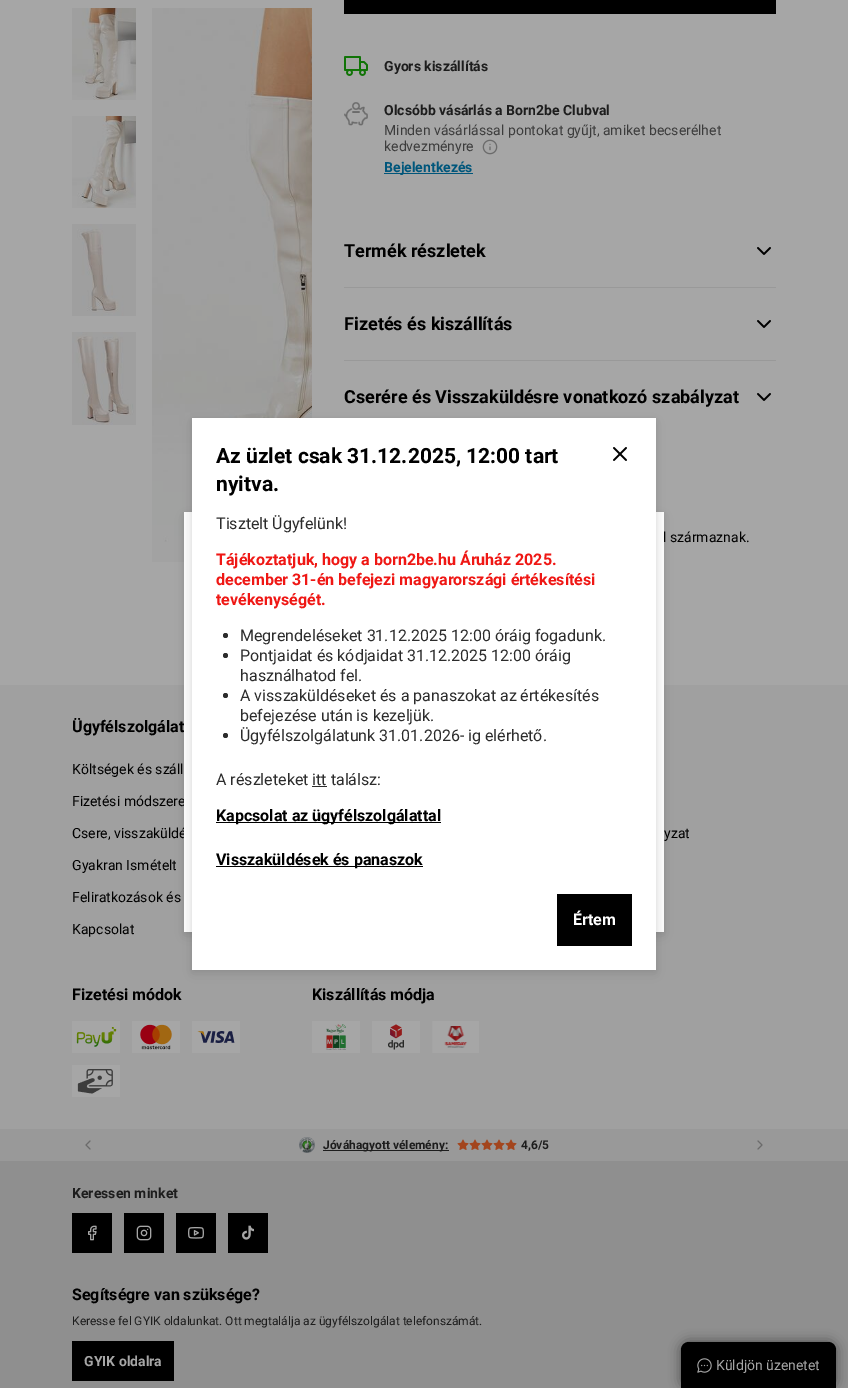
%!PS
<< /PageSize [848 1388] /PageUsesTransparency true >> setpagedevice
/m/moveto load def
/l/rlineto load def
/c/rcurveto load def
/z/closepath load def
/f/fill load def
/C { dup -16 bitshift 255 div exch dup -8 bitshift 255 and 255 div exch 255 and 255 div setrgbcolor } def
/F { [ exch dup neg 0 0 3 -1 roll 0 0 ] selectfont } def
/T { moveto show } def
/R { rectfill } def
/A { dup .setfillconstantalpha .setstrokeconstantalpha } def
/O { newpath 0 360 arc closepath } def
/Q { 5 dict begin { /r /h /w /y /x } { exch def } forall
  x r add y moveto x w add y 2 copy h add r arct x w add y h add x 1 index r arct
  x y h add x y r arct x y 2 copy exch w add exch r arct closepath end } def
/S { 12 dict begin { /a /b /q /h /w /y /x } { exch def } forall gsave /was 0 def
  9 -2 -9 { dup b mul 4 div /e exch def 1 sub .425 mul 2.718 exch exp 1 add a .99 .min exch div /now exch def
    1 1 now sub 1 was sub div sub A /was now def
    w h .min e 2 mul add 0 gt { x e sub y e sub w e 2 mul add h e 2 mul add
      q e add b .6 mul add w h .min 2 div e add .min 0 .max Q fill } if } for grestore end } def
/I { 5 dict begin { /h /w /y /x /name } { exch def } forall
  gsave x y translate w h scale
  w h 8 [w 0 0 h 0 0] name (r) file false 3 colorimage grestore end } def
0 .pushpdf14devicefilter
0 1388 translate 1 -1 scale
4 setmiterlimit
16#A6A6A6 C
0 0 848 1388 R
(1.rgb) 72 8 64 92 I
(2.rgb) 72 116 64 92 I
(3.rgb) 72 224 64 92 I
(4.rgb) 72 332 64 93 I
(5.rgb) 152 8 160 554 I
16#000000 C
344 0 432 14 R
(6.rgb) 344 56 24 20 I
/Roboto-Bold 14 F
16#1D1D1D C
(Gyors kiszállítás) 384 71 T
(7.rgb) 344 102 24 24 I
(Olcsóbb vásárlás a Born2be Clubval) 384 115 T
/Roboto-Regular 14 F
16#3C3C3C C
(Minden vásárlással pontokat gyűjt, amiket becserélhet) 384 135 T
(kedvezményre) 384 151 T
(8.rgb) 482 139 16 16 I
16#00567B C
384 173 89 1 R
/Roboto-Bold 14 F
(Bejelentkezés) 384 172 T
/Roboto-Bold 18 F
16#000000 C
(Termék részletek) 344 257 T
(9.rgb) 757 247 14 8 I
16#999999 C
344 287 432 1 R
16#000000 C
(Fizetés és kiszállítás) 344 330 T
(9.rgb) 757 320 14 8 I
16#999999 C
344 360 432 1 R
16#000000 C
(Cserére és Visszaküldésre vonatkozó szabályzat) 344 403 T
(9.rgb) 757 393 14 8 I
/Roboto-Regular 14 F
(l származnak.) 663 542 T
16#A0A0A0 C
0 685 848 444 R
16#2C2C2C C
184 516 480 420 0 8 .1 S
184 514 480 420 0 4 .1 S
16#000000 C
(Fizetési módszere) 72 806 T
(Csere, visszaküldé) 72 838 T
16#FFFFFF C
184 512 480 420 R
16#2C2C2C C
192 422 464 552 0 8 .1 S
192 420 464 552 0 4 .1 S
16#FFFFFF C
192 418 464 552 R
/Roboto-Bold 21 F
16#000000 C
(Az üzlet csak 31.12.2025, 12:00 tart) 216 463 T
(nyitva.) 216 491 T
(10.rgb) 613 447 14 14 I
/Roboto-Regular 16 F
16#2C2C2C C
(Tisztelt Ügyfelünk!) 216 529 T
/Roboto-Bold 16 F
16#EF1714 C
(Tájékoztatjuk, hogy a born2be.hu Áruház 2025.) 216 565 T
(december 31-én befejezi magyarországi értékesítési) 216 585 T
(tevékenységét.) 216 605 T
16#2C2C2C C
225.5 635.5 2.5 O f
/Roboto-Regular 16 F
(Megrendeléseket 31.12.2025 12:00 óráig fogadunk.) 240 641 T
225.5 655.5 2.5 O f
(Pontjaidat és kódjaidat 31.12.2025 12:00 óráig) 240 661 T
(használhatod fel.) 240 681 T
225.5 695.5 2.5 O f
(A visszaküldéseket és a panaszokat az értékesítés) 240 701 T
(befejezése után is kezeljük.) 240 721 T
225.5 735.5 2.5 O f
(Ügyfélszolgálatunk 31.01.2026- ig elérhető.) 240 741 T
(A részleteket itt találsz:) 216 785 T
312 786 15 1 R
16#000000 C
216 822 225 1 R
/Roboto-Bold 16 F
(Kapcsolat az ügyfélszolgálattal) 216 821 T
216 866 207 1 R
(Visszaküldések és panaszok) 216 865 T
557 894 75 52 R
16#FFFFFF C
(Értem) 573 925 T
16#000000 C
(Ügyfélszolgálat) 72 732 T
/Roboto-Regular 14 F
(Költségek és száll) 72 774 T
(Gyakran Ismételt) 72 870 T
(Feliratkozások és) 72 902 T
(Kapcsolat) 72 934 T
(yzat) 664 838 T
/Roboto-Bold 16 F
(Fizetési módok) 72 1000 T
(11.rgb) 72 1021 48 32 I
(12.rgb) 132 1021 48 32 I
(13.rgb) 192 1021 48 32 I
(14.rgb) 72 1065 48 32 I
(Kiszállítás módja) 312 1000 T
(15.rgb) 312 1021 48 32 I
(16.rgb) 372 1021 48 32 I
(17.rgb) 432 1021 47 32 I
16#999999 C
0 1129 848 32 R
(18.rgb) 85 1140 6 10 I
(19.rgb) 299 1137 16 16 I
16#1D1D1D C
323 1150 126 1 R
/Roboto-Bold 12 F
(Jóváhagyott vélemény:) 323 1149 T
(20.rgb) 457 1139 12 11 I
(20.rgb) 469 1139 12 11 I
(20.rgb) 481 1139 12 11 I
(20.rgb) 493 1139 12 11 I
(20.rgb) 505 1139 12 11 I
(4,6/5) 521 1149 T
(21.rgb) 757 1140 6 10 I
16#8F8F8F C
0 1161 848 227 R
/Roboto-Bold 14 F
16#1D1D1D C
(Keressen minket) 72 1198 T
16#000000 C
72 1213 40 40 R
(22.rgb) 88 1225 9 16 I
124 1213 40 40 R
(23.rgb) 136 1225 16 16 I
176 1213 40 40 R
(24.rgb) 188 1227 16 12 I
228 1213 40 40 R
(25.rgb) 242 1225 12 15 I
/Roboto-Bold 16 F
(Segítségre van szüksége?) 72 1300 T
/Roboto-Regular 12 F
16#1D1D1D C
(Keresse fel GYIK oldalunkat. Ott megtalálja az ügyfélszolgálat telefonszámát.) 72 1325 T
16#000000 C
72 1341 102 40 R
/Roboto-Bold 14 F
16#A6A6A6 C
(GYIK oldalra) 84 1366 T
16#000000 C
681 1342 155 46 8 6 .5 S
689 1342 m 139 0 l 4.5 0 8 3.5 8 8 c 0 38 l -155 0 l 0 -38 l 0 -4.5 3.5 -8 8 -8 c z f
(26.rgb) 697 1358 15 15 I
/Roboto-Regular 14 F
16#A6A6A6 C
(Küldjön üzenetet) 716 1370 T
.poppdf14devicefilter showpage
